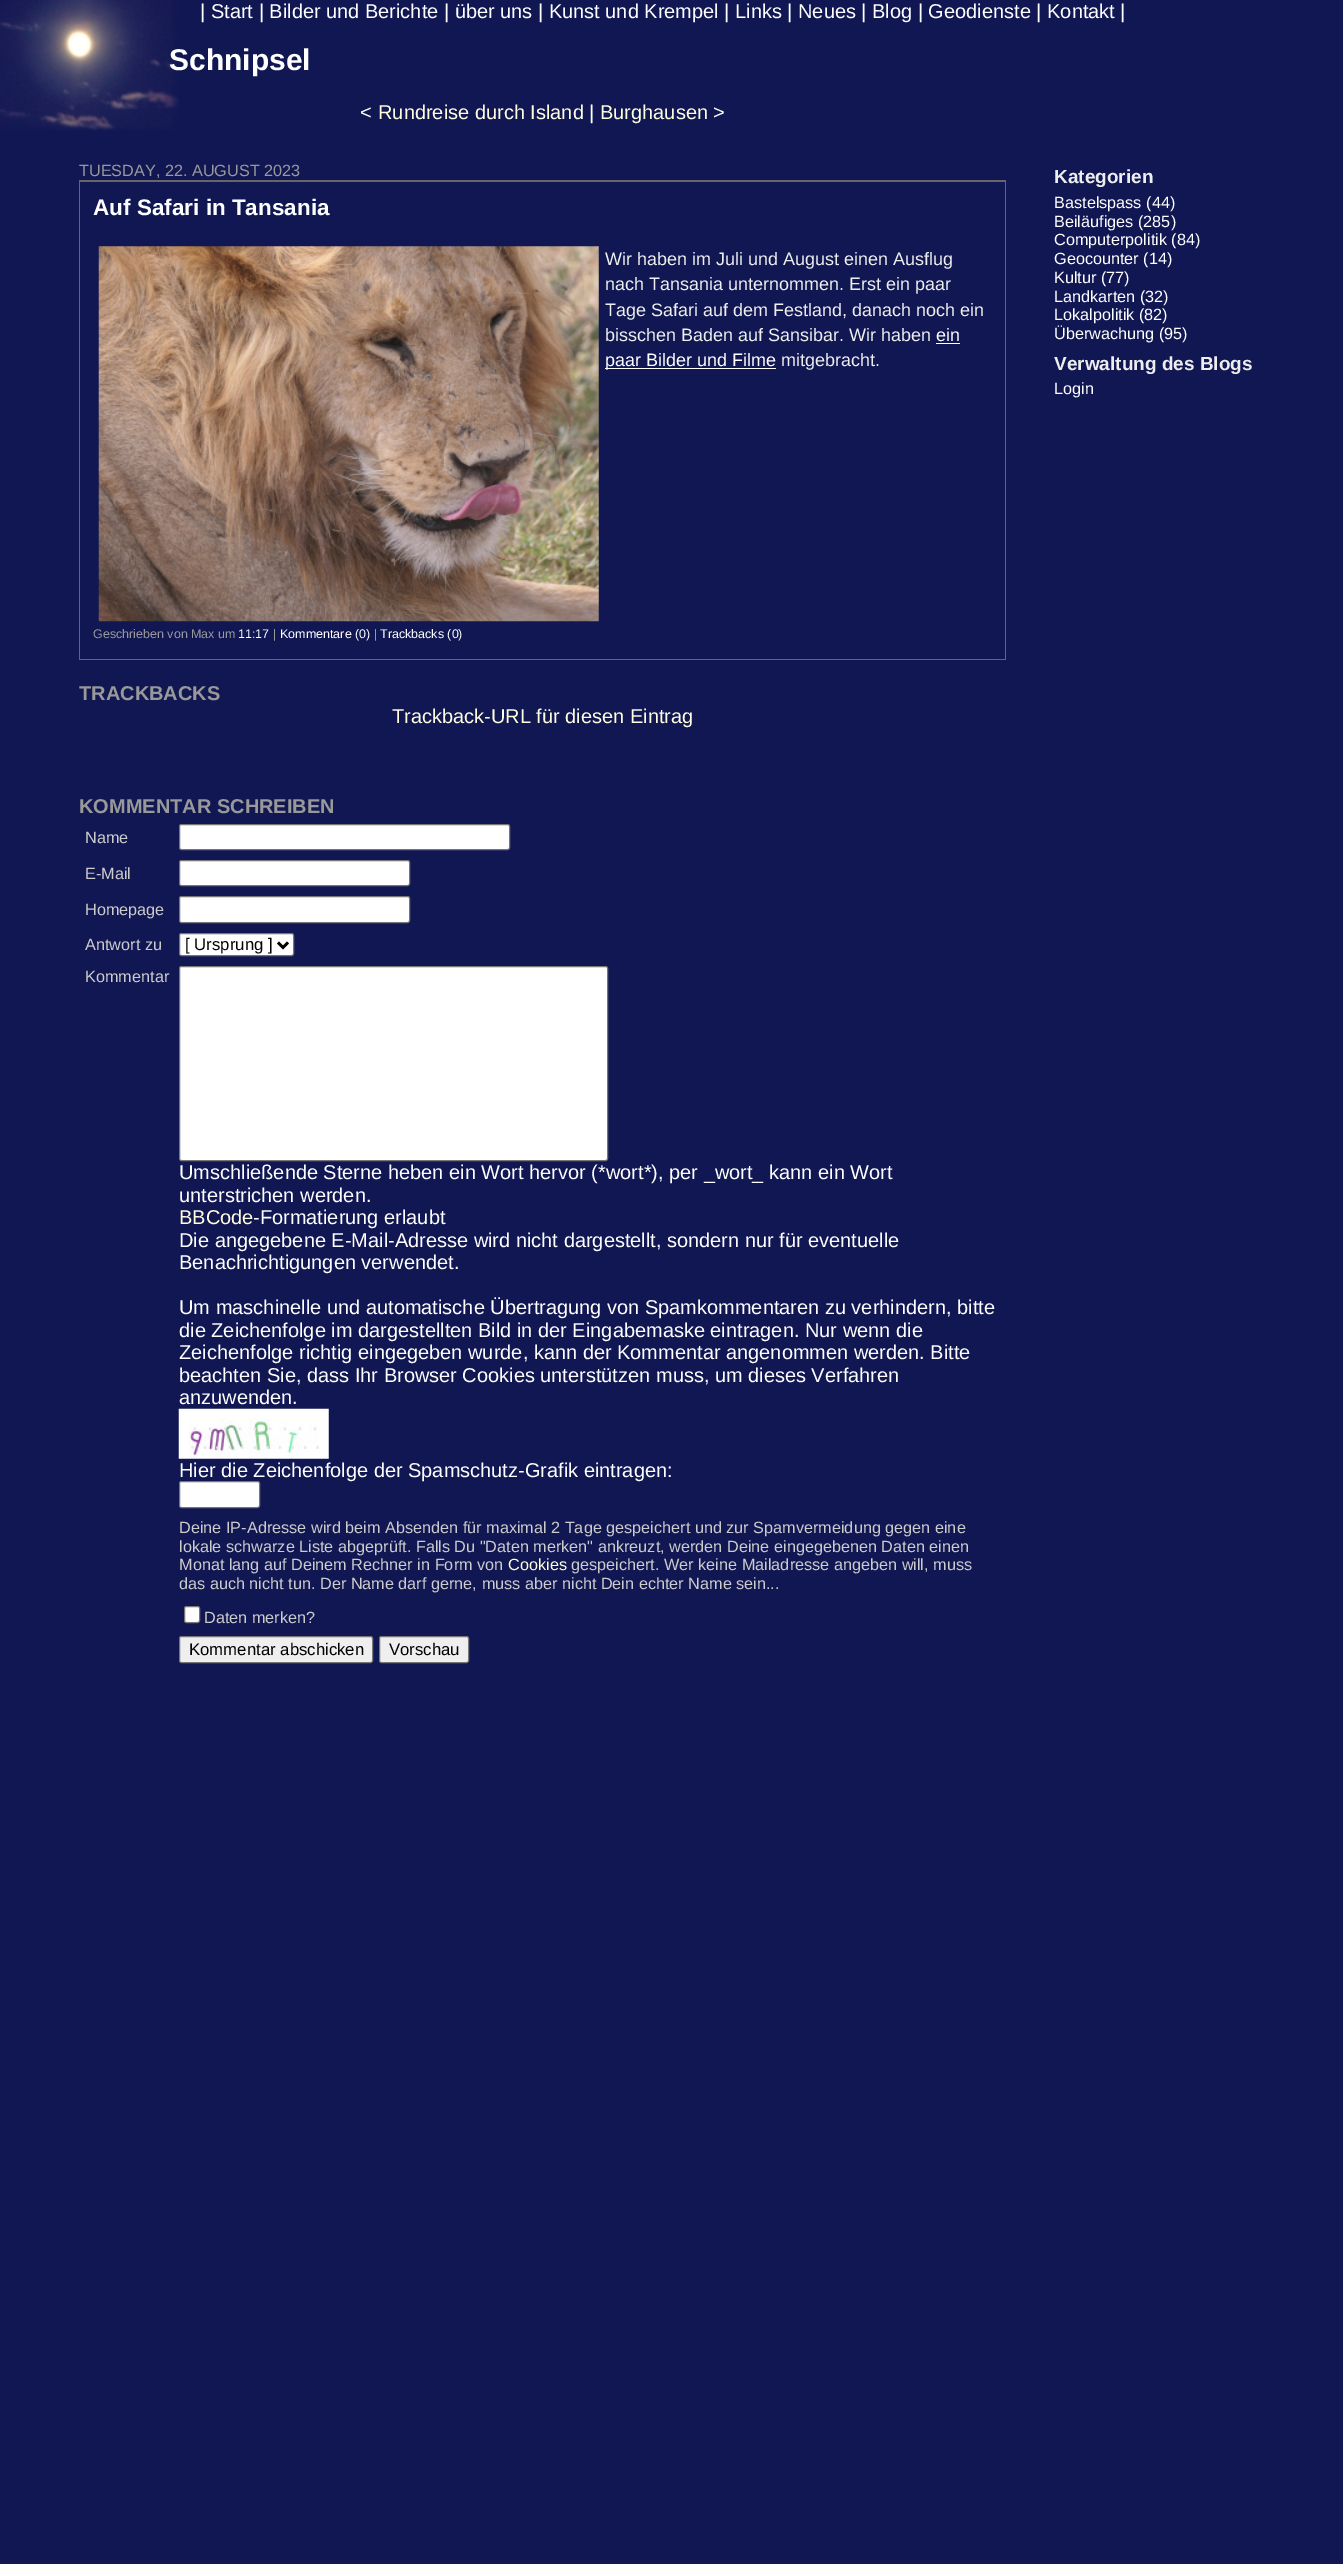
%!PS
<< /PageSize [1343 2564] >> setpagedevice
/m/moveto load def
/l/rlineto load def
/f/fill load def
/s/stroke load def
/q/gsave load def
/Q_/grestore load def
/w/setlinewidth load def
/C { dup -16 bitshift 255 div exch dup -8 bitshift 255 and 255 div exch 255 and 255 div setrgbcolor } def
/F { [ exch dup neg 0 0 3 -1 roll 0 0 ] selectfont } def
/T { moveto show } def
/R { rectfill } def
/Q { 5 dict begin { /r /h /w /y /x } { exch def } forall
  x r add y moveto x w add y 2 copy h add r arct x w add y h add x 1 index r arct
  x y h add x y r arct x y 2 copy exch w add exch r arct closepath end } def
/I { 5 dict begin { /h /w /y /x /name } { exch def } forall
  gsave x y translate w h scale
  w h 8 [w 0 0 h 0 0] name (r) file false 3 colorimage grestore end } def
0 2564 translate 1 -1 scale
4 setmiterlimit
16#111753 C
0 0 1343 2564 R
(1.rgb) 0 0 179 131 I
/LiberationSans-Regular 20 F
16#FFFFFF C
(| Start | Bilder und Berichte | über uns | Kunst und Krempel | Links | Neues | Blog | Geodienste | Kontakt |) 200 18 T
/LiberationSans-Bold 30 F
(Schnipsel) 169 70 T
/LiberationSans-Regular 20 F
(<) 360 119 T
16#FFFFE0 C
(Rundreise durch Island) 378 119 T
16#FFFFFF C
(|) 589 119 T
16#FFFFE0 C
(Burghausen) 600 119 T
16#FFFFFF C
(>) 713 119 T
16#666666 C
79 180 927 2 R
/LiberationSans-Regular 16.25 F
16#999999 C
(TUESDAY, 22. AUGUST 2023) 79 176 T
16#666666 C
1005 181 1 479 R
79 181 1 53 R
/LiberationSans-Bold 22.5 F
16#FFFFFF C
(Auf Safari in Tansania) 93 215 T
16#666666 C
79 659 927 1 R
79 234 1 426 R
(2.rgb) 98 246 501 376 I
/LiberationSans-Regular 18 F
16#EEEEEE C
(Wir haben im Juli und August einen Ausflug) 605 265 T
(nach Tansania unternommen. Erst ein paar) 605 290 T
(Tage Safari auf dem Festland, danach noch ein) 605 316 T
(bisschen Baden auf Sansibar. Wir haben) 605 341 T
16#FFFFFF C
(ein) 936 341 T
936 343 24 1 R
605 368 171 1 R
(paar Bilder und Filme) 605 366 T
16#EEEEEE C
(mitgebracht.) 781 366 T
/LiberationSans-Regular 12.5 F
16#999999 C
(Geschrieben von Max um) 93 638 T
16#FFFFFF C
(11:17) 238 638 T
16#999999 C
(|) 273 638 T
16#FFFFFF C
(Kommentare \(0\)) 280 638 T
16#999999 C
(|) 374 638 T
16#FFFFFF C
(Trackbacks \(0\)) 380 638 T
/LiberationSans-Bold 20 F
16#999999 C
(TRACKBACKS) 79 700 T
/LiberationSans-Regular 20 F
16#FFFFE0 C
(Trackback-URL für diesen Eintrag) 392 723 T
/LiberationSans-Bold 20 F
16#999999 C
(KOMMENTAR SCHREIBEN) 79 813 T
/LiberationSans-Regular 16.25 F
16#CCCCCC C
(Name) 85 843 T
16#FFFFFF C
179.5 824.5 330 25 2 Q q f Q_
16#767676 C
s
16#CCCCCC C
(E-Mail) 85 879 T
16#FFFFFF C
179.5 860.5 230 25 2 Q q f Q_
16#767676 C
s
16#CCCCCC C
(Homepage) 85 915 T
16#FFFFFF C
179.5 896.5 230 26 2 Q q f Q_
16#767676 C
s
16#CCCCCC C
(Antwort zu) 85 950 T
16#FFFFFF C
179.5 933.5 114 22 2 Q q f Q_
16#767676 C
s
16#000000 C
2.5 w
278 942.5 m 5 5 l 5 -5 l s
/LiberationSans-Regular 16.75 F
([ Ursprung ]) 185 950 T
/LiberationSans-Regular 16.25 F
16#CCCCCC C
(Kommentar) 85 982 T
16#FFFFFF C
179.5 966.5 428 194 2 Q q f Q_
16#767676 C
1 w
s
/LiberationSans-Regular 20 F
16#FFFFFF C
(Umschließende Sterne heben ein Wort hervor \(*wort*\), per _wort_ kann ein Wort) 179 1179 T
(unterstrichen werden.) 179 1202 T
16#FFFFE0 C
(BBCode) 179 1224 T
16#FFFFFF C
(-Formatierung erlaubt) 253 1224 T
(Die angegebene E-Mail-Adresse wird nicht dargestellt, sondern nur für eventuelle) 179 1247 T
(Benachrichtigungen verwendet.) 179 1269 T
(Um maschinelle und automatische Übertragung von Spamkommentaren zu verhindern, bitte) 179 1314 T
(die Zeichenfolge im dargestellten Bild in der Eingabemaske eintragen. Nur wenn die) 179 1337 T
(Zeichenfolge richtig eingegeben wurde, kann der Kommentar angenommen werden. Bitte) 179 1359 T
(beachten Sie, dass Ihr Browser Cookies unterstützen muss, um dieses Verfahren) 179 1382 T
(anzuwenden.) 179 1404 T
(3.rgb) 178 1408 151 51 I
(Hier die Zeichenfolge der Spamschutz-Grafik eintragen:) 179 1477 T
179.5 1481.5 80 26 2 Q q f Q_
16#767676 C
s
/LiberationSans-Regular 16.25 F
16#CCCCCC C
(Deine IP-Adresse wird beim Absenden für maximal 2 Tage gespeichert und zur Spamvermeidung gegen eine) 179 1533 T
(lokale schwarze Liste abgeprüft. Falls Du "Daten merken" ankreuzt, werden Deine eingegebenen Daten einen) 179 1552 T
(Monat lang auf Deinem Rechner in Form von) 179 1570 T
16#FFFFE0 C
(Cookies) 508 1570 T
16#CCCCCC C
(gespeichert. Wer keine Mailadresse angeben will, muss) 571 1570 T
(das auch nicht tun. Der Name darf gerne, muss aber nicht Dein echter Name sein...) 179 1589 T
16#FFFFFF C
184.5 1606.5 15 16 2 Q q f Q_
16#767676 C
s
16#CCCCCC C
(Daten merken?) 204 1623 T
16#EFEFEF C
179.5 1636.5 193 26 2 Q q f Q_
16#767676 C
s
/LiberationSans-Regular 16.75 F
16#000000 C
(Kommentar abschicken) 189 1655 T
16#EFEFEF C
379.5 1636.5 89 26 2 Q q f Q_
16#767676 C
s
16#000000 C
(Vorschau) 389 1655 T
/LiberationSans-Bold 19 F
16#EEEEEE C
(Kategorien) 1054 183 T
/LiberationSans-Regular 16.25 F
16#FFFFFF C
(Bastelspass \(44\)) 1054 208 T
(Beiläufiges \(285\)) 1054 227 T
(Computerpolitik \(84\)) 1054 245 T
(Geocounter \(14\)) 1054 264 T
(Kultur \(77\)) 1054 283 T
(Landkarten \(32\)) 1054 302 T
(Lokalpolitik \(82\)) 1054 320 T
(Überwachung \(95\)) 1054 339 T
/LiberationSans-Bold 19 F
16#EEEEEE C
(Verwaltung des Blogs) 1054 370 T
/LiberationSans-Regular 16.25 F
16#FFFFFF C
(Login) 1054 394 T
showpage
